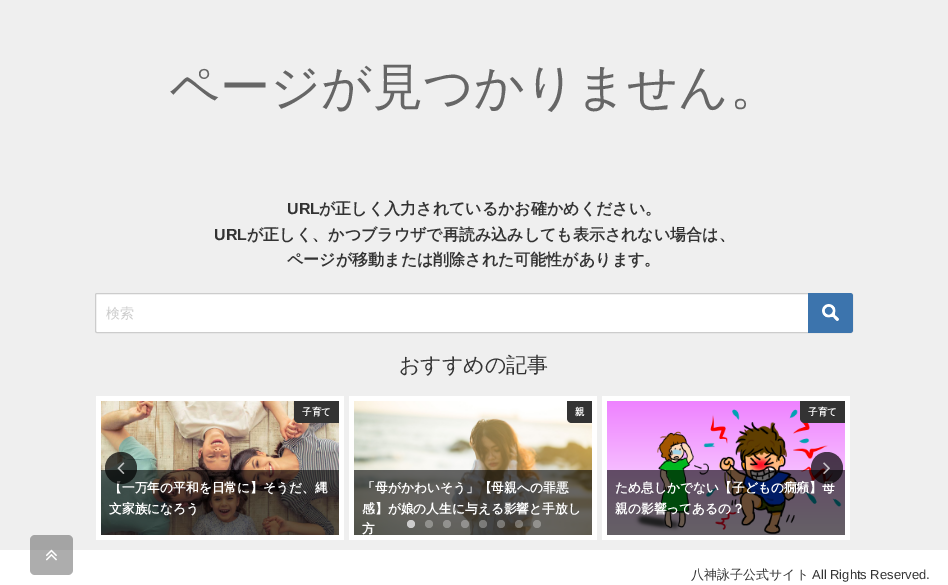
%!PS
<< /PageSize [948 585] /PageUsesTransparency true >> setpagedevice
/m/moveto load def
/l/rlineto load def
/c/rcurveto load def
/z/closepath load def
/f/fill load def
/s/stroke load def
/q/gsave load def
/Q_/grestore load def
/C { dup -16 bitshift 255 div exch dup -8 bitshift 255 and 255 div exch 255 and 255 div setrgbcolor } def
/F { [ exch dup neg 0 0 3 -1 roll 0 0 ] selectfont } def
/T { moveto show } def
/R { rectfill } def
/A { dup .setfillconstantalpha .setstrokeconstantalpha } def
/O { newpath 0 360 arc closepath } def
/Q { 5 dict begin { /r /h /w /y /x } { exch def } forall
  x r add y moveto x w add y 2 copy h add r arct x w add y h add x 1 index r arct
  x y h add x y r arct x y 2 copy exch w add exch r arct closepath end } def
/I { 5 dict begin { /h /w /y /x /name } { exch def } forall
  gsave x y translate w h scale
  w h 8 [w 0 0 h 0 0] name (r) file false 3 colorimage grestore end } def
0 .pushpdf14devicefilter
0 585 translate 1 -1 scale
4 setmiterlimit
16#EFEFEF C
0 0 948 585 R
/WenQuanYiZenHei-Medium 50 F
16#666666 C
(ページが見つかりません。) 169 104 T
/LiberationSans-Bold 16 F
16#333333 C
(URL) 287 214 T
/WenQuanYiZenHei-Bold 16 F
(が正しく入力されているかお確かめください。) 319 214 T
/LiberationSans-Bold 16 F
(URL) 214 240 T
/WenQuanYiZenHei-Bold 16 F
(が正しく、かつブラウザで再読み込みしても表示されない場合は、) 247 240 T
(ページが移動または削除された可能性があります。) 287 265 T
16#FFFFFF C
95.5 293.5 757 39 1.5 Q q f Q_
16#CCCCCC C
s
/WenQuanYiZenHei-Medium 14 F
(検索) 106 318 T
16#3C74AD C
808 293 m 42 0 l 1.5 0 3 1.5 3 3 c 0 34 l 0 1.5 -1.5 3 -3 3 c -42 0 l z f
(1.rgb) 822 304 17 17 I
/WenQuanYiZenHei-Medium 21 F
16#333333 C
(おすすめの記事) 399 372 T
16#FFFFFF C
96 396 248 144 R
(2.rgb) 101 401 238 134 I
16#333333 C
294 401 m 45 0 l 0 22 l -40 0 l -3 0 -5 -2 -5 -5 c z f
/WenQuanYiZenHei-Bold 9.5 F
16#FFFFFF C
(子育て) 302 415 T
0.6 A
16#000000 C
101 470 238 65 R
/WenQuanYiZenHei-Bold 12.75 F
1 A
16#FFFFFF C
(【一万年の平和を日常に】そうだ、縄) 109 492 T
(文家族になろう) 109 513 T
349 396 248 144 R
(3.rgb) 354 401 238 134 I
16#333333 C
567 401 m 25 0 l 0 22 l -20 0 l -3 0 -5 -2 -5 -5 c z f
/WenQuanYiZenHei-Bold 9.5 F
16#FFFFFF C
(親) 575 415 T
0.6 A
16#000000 C
354 470 238 65 R
/WenQuanYiZenHei-Bold 12.75 F
1 A
16#FFFFFF C
(「母がかわいそう」【母親への罪悪) 362 492 T
(感】が娘の人生に与える影響と手放し) 362 513 T
(方) 362 533 T
602 396 248 144 R
(4.rgb) 607 401 238 134 I
16#333333 C
800 401 m 45 0 l 0 22 l -40 0 l -3 0 -5 -2 -5 -5 c z f
/WenQuanYiZenHei-Bold 9.5 F
16#FFFFFF C
(子育て) 808 415 T
0.6 A
16#000000 C
607 470 238 65 R
/WenQuanYiZenHei-Bold 12.75 F
1 A
16#FFFFFF C
(ため息しかでない【子どもの癇癪】母) 615 492 T
(親の影響ってあるの？) 615 513 T
0.7 A
16#000000 C
121 468 16 O f
1 A
(5.rgb) 117 462 8 12 I
0.7 A
827 468 16 O f
1 A
(6.rgb) 823 462 7 12 I
16#CCCCCC C
411 524 4 O f
0.3 A
16#FFFFFF C
429 524 4 O f
447 524 4 O f
465 524 4 O f
483 524 4 O f
501 524 4 O f
519 524 4 O f
1 A
16#92918E C
537 524 4 O f
16#FFFFFF C
0 550 948 35 R
0.4 A
16#333333 C
30 535 43 40 5 Q f
1 A
(7.rgb) 46 549 11 12 I
/WenQuanYiZenHei-Medium 13 F
(八神詠子公式サイト) 691 579 T
/LiberationSans-Regular 13 F
(All Rights Reserved.) 812 579 T
.poppdf14devicefilter showpage
